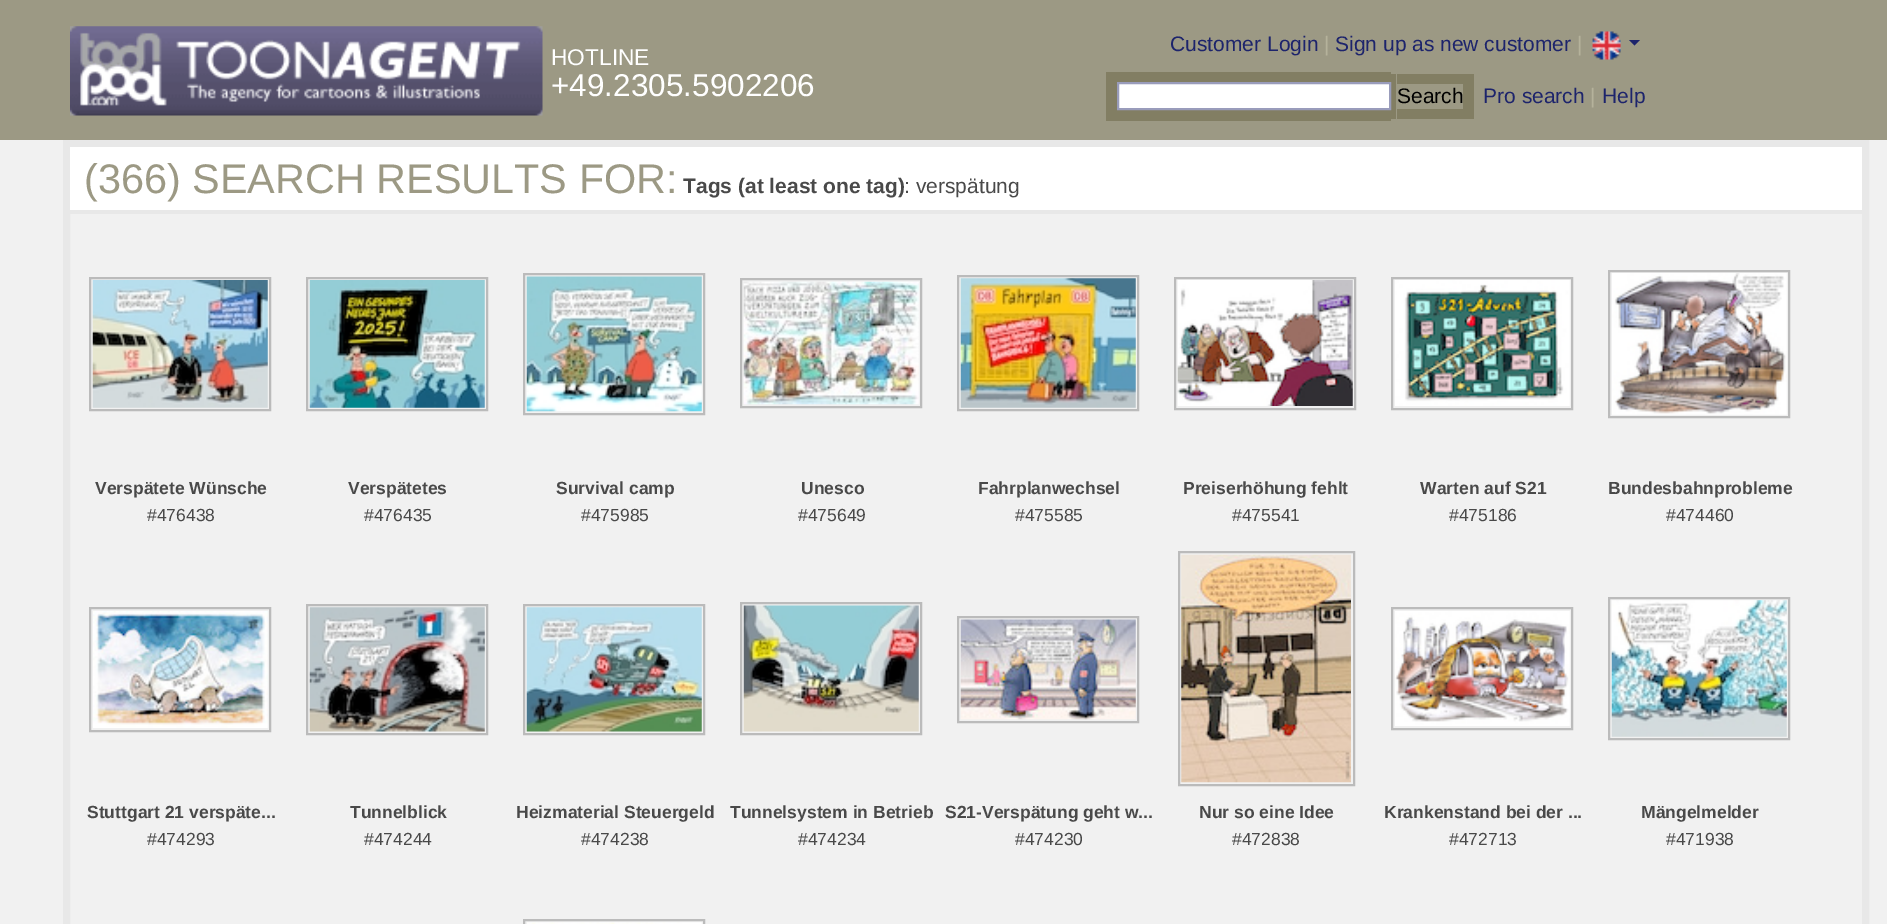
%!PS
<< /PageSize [1887 924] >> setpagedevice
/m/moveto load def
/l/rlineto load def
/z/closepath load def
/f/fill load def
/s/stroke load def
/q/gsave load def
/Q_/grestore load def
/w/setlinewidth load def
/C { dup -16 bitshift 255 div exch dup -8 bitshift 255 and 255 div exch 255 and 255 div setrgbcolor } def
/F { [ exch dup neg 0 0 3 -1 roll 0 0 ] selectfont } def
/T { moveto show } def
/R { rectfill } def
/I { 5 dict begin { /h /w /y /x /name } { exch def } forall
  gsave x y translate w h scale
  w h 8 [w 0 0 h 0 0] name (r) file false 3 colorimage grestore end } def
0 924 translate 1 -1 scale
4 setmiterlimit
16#F1F1F1 C
0 0 1887 924 R
16#9C9984 C
0 0 1887 140 R
/LiberationSans-Regular 21 F
16#1D246C C
(Customer Login) 1170 51 T
16#B5B29B C
(|) 1324 51 T
16#1D246C C
(Sign up as new customer) 1335 51 T
16#B5B29B C
(|) 1577 51 T
(1.rgb) 1592 31 29 29 I
16#1D246C C
1629 40 m 11 0 l -5.5 5.5 l z f
(2.rgb) 70 26 473 90 I
/LiberationSans-Regular 22.75 F
16#FFFFFF C
(HOTLINE) 551 65 T
/LiberationSans-Regular 31.5 F
(+49.2305.5902206) 551 96 T
16#827E63 C
1106 72 285 49 R
1391 74 5 45 R
1397 74 77 45 R
16#FFFFFF C
1118 83 m 272 0 l 0 26 l -272 0 l z q f Q_
16#999CBB C
2 w
s
16#9C9984 C
1397 84 66 25 R
/LiberationSans-Regular 21 F
16#000000 C
(Search) 1397 103 T
16#1D246C C
(Pro search) 1483 103 T
16#B5B29B C
(|) 1590 103 T
16#1D246C C
(Help) 1602 103 T
16#E8E8E8 C
7 w
66.5 143.5 1799 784 rectstroke
16#FFFFFF C
70 147 1792 63 R
/LiberationSans-Regular 41.4 F
16#9C9984 C
(\(366\) SEARCH RESULTS FOR:) 84 193 T
/LiberationSans-Bold 21 F
16#494949 C
(Tags \(at least one tag\)) 683 193 T
/LiberationSans-Regular 21 F
(: verspätung) 904 193 T
16#E8E8E8 C
70 210 1792 4 R
16#BBBBBB C
2 w
90 278 180 132 rectstroke
(3.rgb) 92 280 176 128 I
/LiberationSans-Bold 17.5 F
16#494949 C
(Verspätete Wünsche) 95 494 T
/LiberationSans-Regular 17.5 F
(#476438) 147 521 T
16#BBBBBB C
307 278 180 132 rectstroke
(4.rgb) 309 280 176 128 I
/LiberationSans-Bold 17.5 F
16#494949 C
(Verspätetes) 348 494 T
/LiberationSans-Regular 17.5 F
(#476435) 364 521 T
16#BBBBBB C
524 274 180 140 rectstroke
(5.rgb) 526 276 176 136 I
/LiberationSans-Bold 17.5 F
16#494949 C
(Survival camp) 556 494 T
/LiberationSans-Regular 17.5 F
(#475985) 581 521 T
16#BBBBBB C
741 279 180 128 rectstroke
(6.rgb) 743 281 176 124 I
/LiberationSans-Bold 17.5 F
16#494949 C
(Unesco) 801 494 T
/LiberationSans-Regular 17.5 F
(#475649) 798 521 T
16#BBBBBB C
958 276 180 134 rectstroke
(7.rgb) 960 278 176 130 I
/LiberationSans-Bold 17.5 F
16#494949 C
(Fahrplanwechsel) 978 494 T
/LiberationSans-Regular 17.5 F
(#475585) 1015 521 T
16#BBBBBB C
1175 278 180 131 rectstroke
(8.rgb) 1177 280 176 126 I
/LiberationSans-Bold 17.5 F
16#494949 C
(Preiserhöhung fehlt) 1183 494 T
/LiberationSans-Regular 17.5 F
(#475541) 1232 521 T
16#BBBBBB C
1392 278 180 131 rectstroke
(9.rgb) 1395 280 175 126 I
/LiberationSans-Bold 17.5 F
16#494949 C
(Warten auf S21) 1420 494 T
/LiberationSans-Regular 17.5 F
(#475186) 1449 521 T
16#BBBBBB C
1609 271 180 146 rectstroke
(10.rgb) 1612 273 175 142 I
/LiberationSans-Bold 17.5 F
16#494949 C
(Bundesbahnprobleme) 1608 494 T
/LiberationSans-Regular 17.5 F
(#474460) 1666 521 T
16#BBBBBB C
90 608 180 123 rectstroke
(11.rgb) 93 611 175 117 I
/LiberationSans-Bold 17.5 F
16#494949 C
(Stuttgart 21 verspäte...) 87 818 T
/LiberationSans-Regular 17.5 F
(#474293) 147 845 T
16#BBBBBB C
307 605 180 129 rectstroke
(12.rgb) 309 607 176 125 I
/LiberationSans-Bold 17.5 F
16#494949 C
(Tunnelblick) 350 818 T
/LiberationSans-Regular 17.5 F
(#474244) 364 845 T
16#BBBBBB C
524 605 180 129 rectstroke
(13.rgb) 526 607 176 125 I
/LiberationSans-Bold 17.5 F
16#494949 C
(Heizmaterial Steuergeld) 516 818 T
/LiberationSans-Regular 17.5 F
(#474238) 581 845 T
16#BBBBBB C
741 603 180 131 rectstroke
(14.rgb) 743 605 176 127 I
/LiberationSans-Bold 17.5 F
16#494949 C
(Tunnelsystem in Betrieb) 730 818 T
/LiberationSans-Regular 17.5 F
(#474234) 798 845 T
16#BBBBBB C
958 617 180 105 rectstroke
(15.rgb) 960 619 176 101 I
/LiberationSans-Bold 17.5 F
16#494949 C
(S21-Verspätung geht w...) 945 818 T
/LiberationSans-Regular 17.5 F
(#474230) 1015 845 T
16#BBBBBB C
1179 552 175 233 rectstroke
(16.rgb) 1181 554 170 229 I
/LiberationSans-Bold 17.5 F
16#494949 C
(Nur so eine Idee) 1199 818 T
/LiberationSans-Regular 17.5 F
(#472838) 1232 845 T
16#BBBBBB C
1392 608 180 121 rectstroke
(17.rgb) 1395 611 175 115 I
/LiberationSans-Bold 17.5 F
16#494949 C
(Krankenstand bei der ...) 1384 818 T
/LiberationSans-Regular 17.5 F
(#472713) 1449 845 T
16#BBBBBB C
1609 598 180 141 rectstroke
(18.rgb) 1611 600 176 137 I
/LiberationSans-Bold 17.5 F
16#494949 C
(Mängelmelder) 1641 818 T
/LiberationSans-Regular 17.5 F
(#471938) 1666 845 T
16#BBBBBB C
524 920 180 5 rectstroke
(19.rgb) 527 922 175 2 I
showpage
